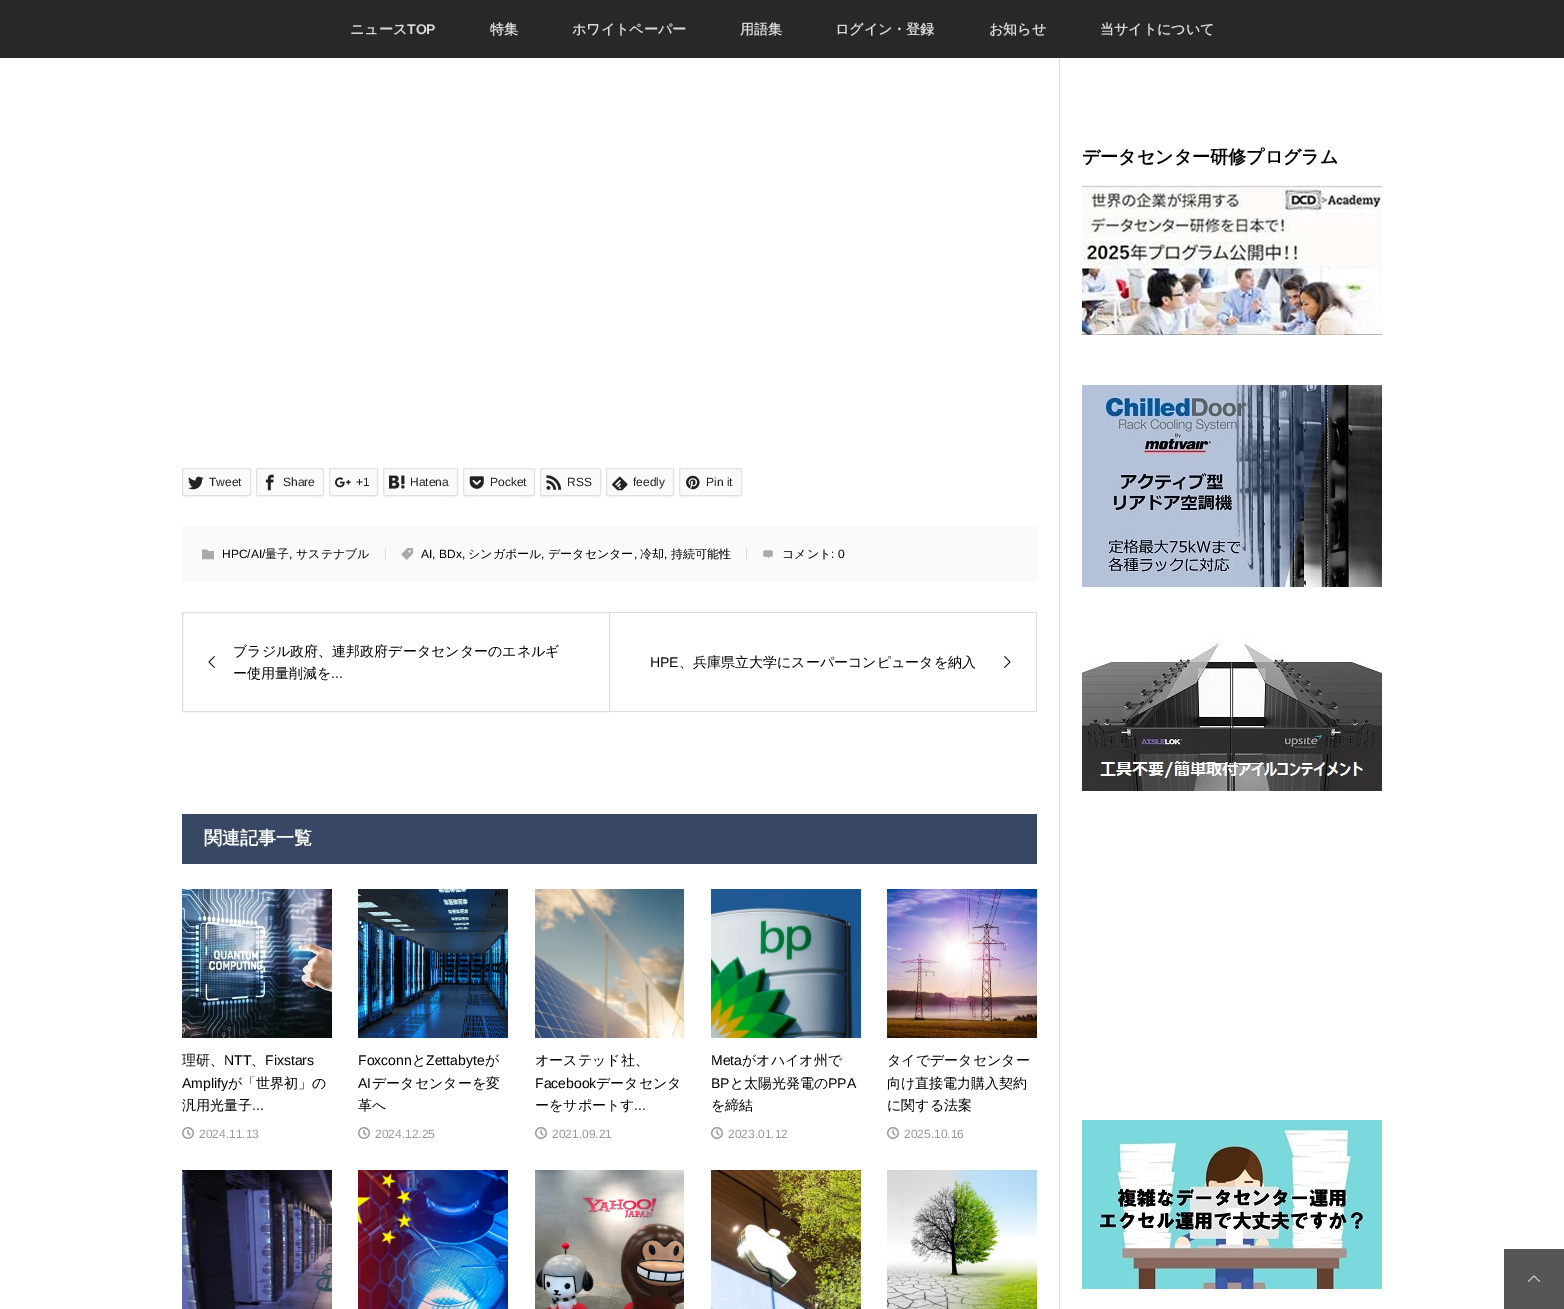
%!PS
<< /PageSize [1564 1309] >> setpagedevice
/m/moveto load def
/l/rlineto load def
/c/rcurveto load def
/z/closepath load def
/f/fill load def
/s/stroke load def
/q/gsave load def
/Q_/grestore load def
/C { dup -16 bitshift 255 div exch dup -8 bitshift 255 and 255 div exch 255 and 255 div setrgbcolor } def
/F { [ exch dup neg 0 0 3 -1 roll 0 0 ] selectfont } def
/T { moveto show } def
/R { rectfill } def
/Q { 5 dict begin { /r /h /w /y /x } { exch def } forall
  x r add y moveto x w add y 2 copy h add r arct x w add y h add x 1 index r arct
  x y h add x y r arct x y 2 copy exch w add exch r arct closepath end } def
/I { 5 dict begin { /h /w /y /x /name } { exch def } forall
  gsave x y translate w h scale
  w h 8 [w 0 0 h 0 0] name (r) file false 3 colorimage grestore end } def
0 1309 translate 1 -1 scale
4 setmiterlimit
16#FFFFFF C
0 0 1564 1309 R
16#282828 C
0 0 1564 58 R
/WenQuanYiZenHei-Bold 14 F
16#D8D8D8 C
(ニュース) 350 34 T
/LiberationSans-Bold 14 F
(TOP) 407 34 T
/WenQuanYiZenHei-Bold 14 F
(特集) 490 34 T
(ホワイトペーパー) 572 34 T
(用語集) 740 34 T
(ログイン・登録) 835 34 T
(お知らせ) 989 34 T
(当サイトについて) 1100 34 T
16#DDDDDD C
1059 58 1 1251 R
/WenQuanYiZenHei-Bold 18 F
16#000000 C
(データセンター研修プログラム) 1082 163 T
(1.rgb) 1082 185 300 150 I
(2.rgb) 1082 385 300 202 I
(3.rgb) 1082 637 300 154 I
(4.rgb) 1082 1120 300 169 I
16#F7F7F7 C
182 494 m 0 6 9 3 13 3 c 43 0 l 4 0 13 3 13 -3 c 0 1 -1 2 -2 2 c -66 0 l z f
16#FAFAFA C
182.5 468.5 68 27 1.5 Q q f Q_
16#E1E1E1 C
s
(5.rgb) 188 476 16 14 I
/LiberationSans-Regular 12 F
16#222222 C
(Tweet) 209 486 T
16#F7F7F7 C
256 494 m 0 6 9 3 13 3 c 42 0 l 4 0 13 3 13 -3 c 0 1 -1 2 -2 2 c -65 0 l z f
16#FAFAFA C
256.5 468.5 67 27 1.5 Q q f Q_
16#E1E1E1 C
s
(6.rgb) 265 474 9 17 I
16#222222 C
(Share) 283 486 T
16#F7F7F7 C
329 494 m 0 5 6 3 9 3 c 30 0 l 4 0 10 2 10 -3 c 0 1 -1 2 -2 2 c -45 0 l -1 0 -2 -1 -2 -2 c z f
16#FAFAFA C
329.5 468.5 48 27 1.5 Q q f Q_
16#E1E1E1 C
s
(7.rgb) 335 477 16 11 I
16#222222 C
(+1) 356 486 T
16#F7F7F7 C
383 494 m 0 6 11 3 14 3 c 47 0 l 3 0 14 3 14 -3 c -1 1 l -1 1 l -71 0 l -1 0 -2 -1 -2 -2 c z f
16#FAFAFA C
383.5 468.5 74 27 1.5 Q q f Q_
16#E1E1E1 C
s
(8.rgb) 389 475 16 14 I
16#222222 C
(Hatena) 410 486 T
16#F7F7F7 C
463 494 m 0 6 10 3 13 3 c 46 0 l 3 0 13 3 13 -3 c 0 1 -1 2 -2 2 c -69 0 l z f
16#FAFAFA C
463.5 468.5 71 27 1.5 Q q f Q_
16#E1E1E1 C
s
(9.rgb) 469 476 15 13 I
16#222222 C
(Pocket) 490 486 T
16#F7F7F7 C
540 494 m 0 6 8 3 12 3 c 38 0 l 3 0 11 3 11 -3 c -1 2 l -48 0 l -4 0 -9 2 -11 -1 c z f
16#FAFAFA C
540.5 468.5 60 27 1.5 Q q f Q_
16#E1E1E1 C
s
(10.rgb) 546 475 16 15 I
16#222222 C
(RSS) 567 486 T
16#F7F7F7 C
606 494 m 0 6 9 3 13 3 c 42 0 l 4 0 13 3 13 -3 c 0 1 -1 2 -2 2 c -65 0 l z f
16#FAFAFA C
606.5 468.5 67 27 1.5 Q q f Q_
16#E1E1E1 C
s
(11.rgb) 612 476 16 15 I
16#222222 C
(feedly) 633 486 T
16#F7F7F7 C
679 494 m 0 6 8 3 12 3 c 39 0 l 4 0 12 3 12 -3 c -1 2 l -50 0 l -4 0 -12 2 -12 -2 c z f
16#FAFAFA C
679.5 468.5 62 27 1.5 Q q f Q_
16#E1E1E1 C
s
(12.rgb) 686 475 14 15 I
16#222222 C
(Pin it) 706 486 T
16#FAFAFA C
182 526 855 56 R
16#DDDDDD C
385 548 1 12 R
(13.rgb) 202 549 12 11 I
16#000000 C
(HPC/AI/) 222 558 T
/WenQuanYiZenHei-Medium 12 F
(量子) 265 558 T
/LiberationSans-Regular 12 F
(,) 289 558 T
/WenQuanYiZenHei-Medium 12 F
(サステナブル) 296 558 T
16#DDDDDD C
746 548 1 12 R
(14.rgb) 401 548 12 12 I
/LiberationSans-Regular 12 F
16#000000 C
(AI, BDx,) 421 558 T
/WenQuanYiZenHei-Medium 12 F
(シンガポール) 468 558 T
/LiberationSans-Regular 12 F
(,) 541 558 T
/WenQuanYiZenHei-Medium 12 F
(データセンター) 548 558 T
/LiberationSans-Regular 12 F
(,) 634 558 T
/WenQuanYiZenHei-Medium 12 F
(冷却) 640 558 T
/LiberationSans-Regular 12 F
(,) 664 558 T
/WenQuanYiZenHei-Medium 12 F
(持続可能性) 671 558 T
(15.rgb) 763 550 10 9 I
(コメント) 782 558 T
/LiberationSans-Regular 12 F
(: 0) 831 558 T
16#DDDDDD C
182.5 612.5 427 99 rectstroke
(16.rgb) 208 656 7 12 I
/WenQuanYiZenHei-Medium 14 F
16#000000 C
(ブラジル政府、連邦政府データセンターのエネルギ) 233 656 T
(ー使用量削減を) 233 678 T
/LiberationSans-Regular 14 F
(...) 331 678 T
16#DDDDDD C
610 612 427 1 R
1036 612 1 100 R
610 711 427 1 R
16#000000 C
(HPE) 650 667 T
/WenQuanYiZenHei-Medium 14 F
(、兵庫県立大学にスーパーコンピュータを納入) 679 667 T
(17.rgb) 1004 656 7 12 I
16#384864 C
182 814 855 50 R
/WenQuanYiZenHei-Bold 18 F
16#FFFFFF C
(関連記事一覧) 204 844 T
(18.rgb) 182 889 150 149 I
/WenQuanYiZenHei-Medium 14 F
16#000000 C
(理研、) 182 1065 T
/LiberationSans-Regular 14 F
(NTT) 224 1065 T
/WenQuanYiZenHei-Medium 14 F
(、) 251 1065 T
/LiberationSans-Regular 14 F
(Fixstars) 265 1065 T
(Amplify) 182 1088 T
/WenQuanYiZenHei-Medium 14 F
(が「世界初」の) 228 1088 T
(汎用光量子) 182 1110 T
/LiberationSans-Regular 14 F
(...) 252 1110 T
(19.rgb) 182 1127 12 12 I
/LiberationSans-Regular 12 F
16#999999 C
(2024.11.13) 199 1138 T
(20.rgb) 358 889 150 149 I
/LiberationSans-Regular 14 F
16#000000 C
(Foxconn) 358 1065 T
/WenQuanYiZenHei-Medium 14 F
(と) 412 1065 T
/LiberationSans-Regular 14 F
(Zettabyte) 426 1065 T
/WenQuanYiZenHei-Medium 14 F
(が) 485 1065 T
/LiberationSans-Regular 14 F
(AI) 358 1088 T
/WenQuanYiZenHei-Medium 14 F
(データセンターを変) 372 1088 T
(革へ) 358 1110 T
(19.rgb) 358 1127 12 12 I
/LiberationSans-Regular 12 F
16#999999 C
(2024.12.25) 375 1138 T
(21.rgb) 535 889 149 149 I
/WenQuanYiZenHei-Medium 14 F
16#000000 C
(オーステッド社、) 535 1065 T
/LiberationSans-Regular 14 F
(Facebook) 535 1088 T
/WenQuanYiZenHei-Medium 14 F
(データセンタ) 596 1088 T
(ーをサポートす) 535 1110 T
/LiberationSans-Regular 14 F
(...) 634 1110 T
(19.rgb) 535 1127 12 12 I
/LiberationSans-Regular 12 F
16#999999 C
(2021.09.21) 552 1138 T
(22.rgb) 711 889 150 149 I
/LiberationSans-Regular 14 F
16#000000 C
(Meta) 711 1065 T
/WenQuanYiZenHei-Medium 14 F
(がオハイオ州で) 742 1065 T
/LiberationSans-Regular 14 F
(BP) 711 1088 T
/WenQuanYiZenHei-Medium 14 F
(と太陽光発電の) 730 1088 T
/LiberationSans-Regular 14 F
(PPA) 828 1088 T
/WenQuanYiZenHei-Medium 14 F
(を締結) 711 1110 T
(19.rgb) 711 1127 12 12 I
/LiberationSans-Regular 12 F
16#999999 C
(2023.01.12) 728 1138 T
(23.rgb) 887 889 150 149 I
/WenQuanYiZenHei-Medium 14 F
16#000000 C
(タイでデータセンター) 887 1065 T
(向け直接電力購入契約) 887 1088 T
(に関する法案) 887 1110 T
(19.rgb) 887 1127 12 12 I
/LiberationSans-Regular 12 F
16#999999 C
(2025.10.16) 904 1138 T
(24.rgb) 182 1170 150 139 I
(25.rgb) 358 1170 150 139 I
(26.rgb) 535 1170 149 139 I
(27.rgb) 711 1170 150 139 I
(28.rgb) 887 1170 150 139 I
16#565656 C
1504 1249 60 60 R
(29.rgb) 1528 1275 12 7 I
showpage
